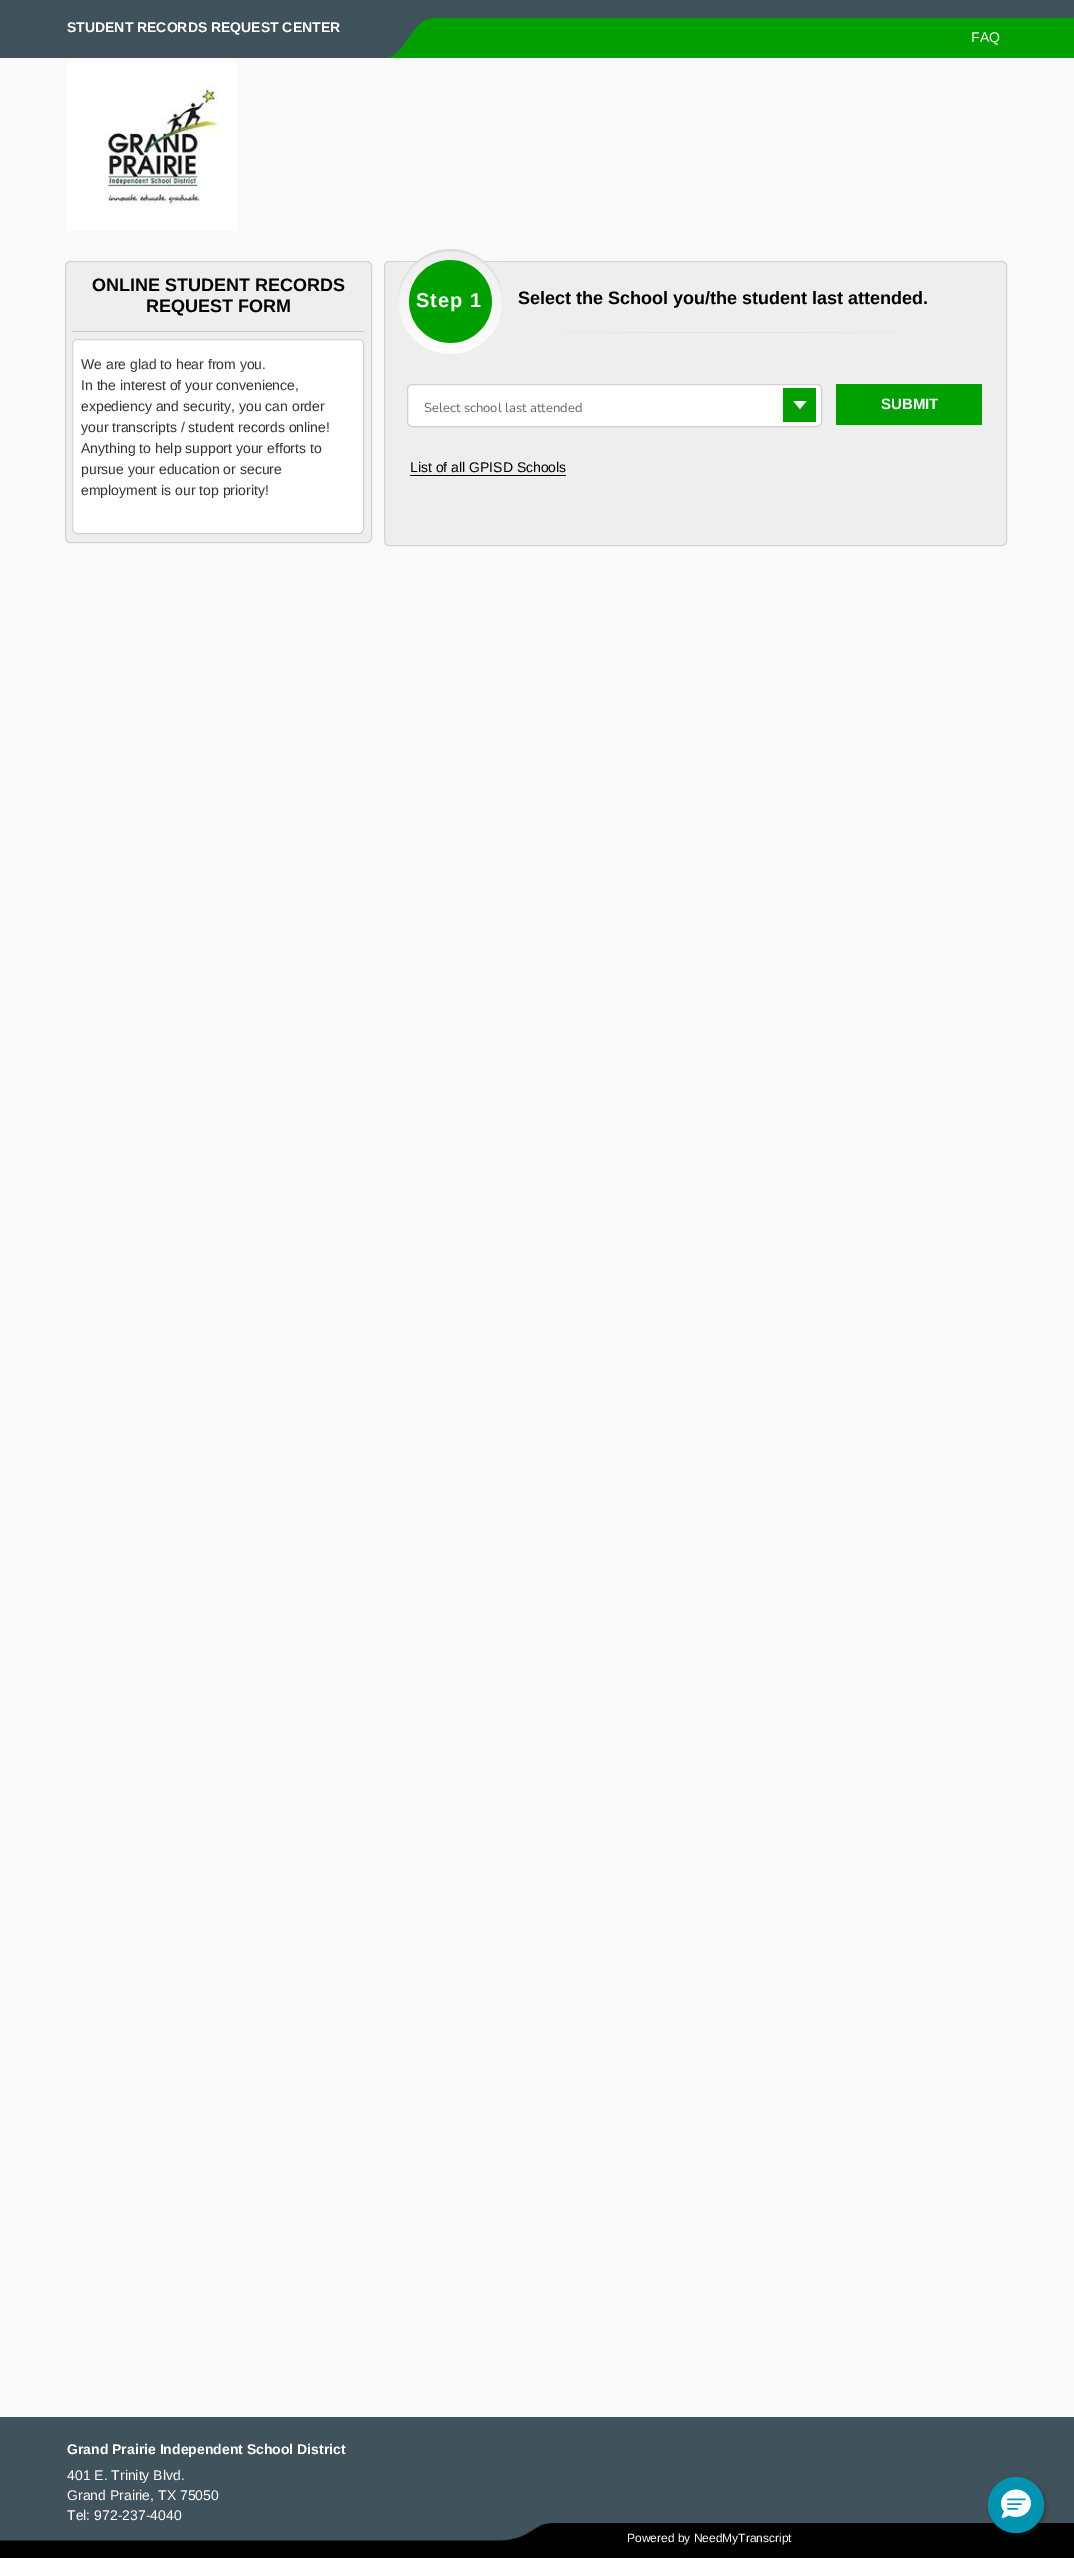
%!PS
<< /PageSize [1074 2558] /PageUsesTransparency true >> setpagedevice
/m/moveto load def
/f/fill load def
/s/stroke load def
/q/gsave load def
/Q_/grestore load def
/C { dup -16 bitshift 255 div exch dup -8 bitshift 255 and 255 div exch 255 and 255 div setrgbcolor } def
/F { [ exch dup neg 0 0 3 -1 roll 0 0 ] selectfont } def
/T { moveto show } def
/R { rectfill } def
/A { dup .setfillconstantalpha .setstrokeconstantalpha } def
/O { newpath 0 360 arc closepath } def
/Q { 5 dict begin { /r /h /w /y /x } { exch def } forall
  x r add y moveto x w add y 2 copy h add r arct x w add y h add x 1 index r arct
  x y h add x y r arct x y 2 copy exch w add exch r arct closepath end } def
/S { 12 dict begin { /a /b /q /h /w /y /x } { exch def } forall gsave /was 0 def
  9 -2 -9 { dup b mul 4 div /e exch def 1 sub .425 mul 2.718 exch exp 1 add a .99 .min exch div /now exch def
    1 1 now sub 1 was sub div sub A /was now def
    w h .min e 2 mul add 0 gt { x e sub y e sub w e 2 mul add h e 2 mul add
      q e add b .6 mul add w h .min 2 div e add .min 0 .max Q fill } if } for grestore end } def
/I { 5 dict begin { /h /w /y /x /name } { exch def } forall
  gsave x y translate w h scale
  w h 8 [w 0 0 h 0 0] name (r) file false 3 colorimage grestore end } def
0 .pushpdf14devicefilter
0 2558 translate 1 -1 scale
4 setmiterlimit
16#F9F9F9 C
0 0 1074 2558 R
16#00A000 C
385 3 689 55 R
(1.rgb) 0 0 1074 58 I
(2.rgb) 386 5 688 53 I
/LiberationSans-Bold 14 F
16#FFFFFF C
(STUDENT RECORDS REQUEST CENTER) 67 32 T
/LiberationSans-Regular 14 F
(FAQ) 971 42 T
(3.rgb) 67 61 170 170 I
16#EEEEEE C
65.5 261.5 306 281 4.5 Q q f Q_
16#D4D4D4 C
s
/LiberationSans-Bold 18 F
16#000000 C
(ONLINE STUDENT RECORDS) 92 291 T
(REQUEST FORM) 146 312 T
16#C7C7C7 C
72 331 292 1 R
16#FFFFFF C
72.5 339.5 291 194 4.5 Q q f Q_
16#D4D4D4 C
s
/LiberationSans-Regular 14 F
16#333333 C
(We are glad to hear from you.) 81 369 T
(In the interest of your convenience,) 81 390 T
(expediency and security, you can order) 81 411 T
(your transcripts / student records online!) 81 432 T
(Anything to help support your efforts to) 81 453 T
(pursue your education or secure) 81 474 T
(employment is our top priority!) 81 495 T
16#EEEEEE C
384.5 261.5 622 284 4.5 Q q f Q_
16#D4D4D4 C
s
(4.rgb) 398 249 104 105 I
/LiberationSans-Bold 20 F
16#FFFFFF C
416 307 m 1 0 (Step 1) ashow
/LiberationSans-Bold 18 F
16#000000 C
(Select the School you/the student last attended.) 518 304 T
(5.rgb) 561 332 337 1 I
16#FFFFFF C
407.5 384.5 414 42 4.5 Q q f Q_
16#D0D0D0 C
s
/NunitoSans-Regular 13 F
16#666666 C
(Select school last attended) 424 412 T
16#00A000 C
783 388 33 34 R
(6.rgb) 793 401 14 9 I
836 384 146 41 R
/LiberationSans-Bold 15 F
16#FFFFFF C
(SUBMIT) 881 409 T
/LiberationSans-Regular 14 F
16#000000 C
(List of all GPISD Schools) 410 472 T
410 475 156 1 R
16#40525B C
0 2417 1074 124 R
/LiberationSans-Bold 14 F
16#FFFFFF C
(Grand Prairie Independent School District) 67 2454 T
/LiberationSans-Regular 14 F
(401 E. Trinity Blvd.) 67 2480 T
(Grand Prairie, TX 75050) 67 2500 T
(Tel: 972-237-4040) 67 2520 T
(7.rgb) 0 2523 1074 35 I
/LiberationSans-Regular 12 F
(Powered by NeedMyTranscript) 627 2542 T
16#2D2D2D C
990 2479 56 56 28 2.5 .5 S
16#0093B2 C
1016 2505 28 O f
(8.rgb) 1001 2489 30 29 I
.poppdf14devicefilter showpage
